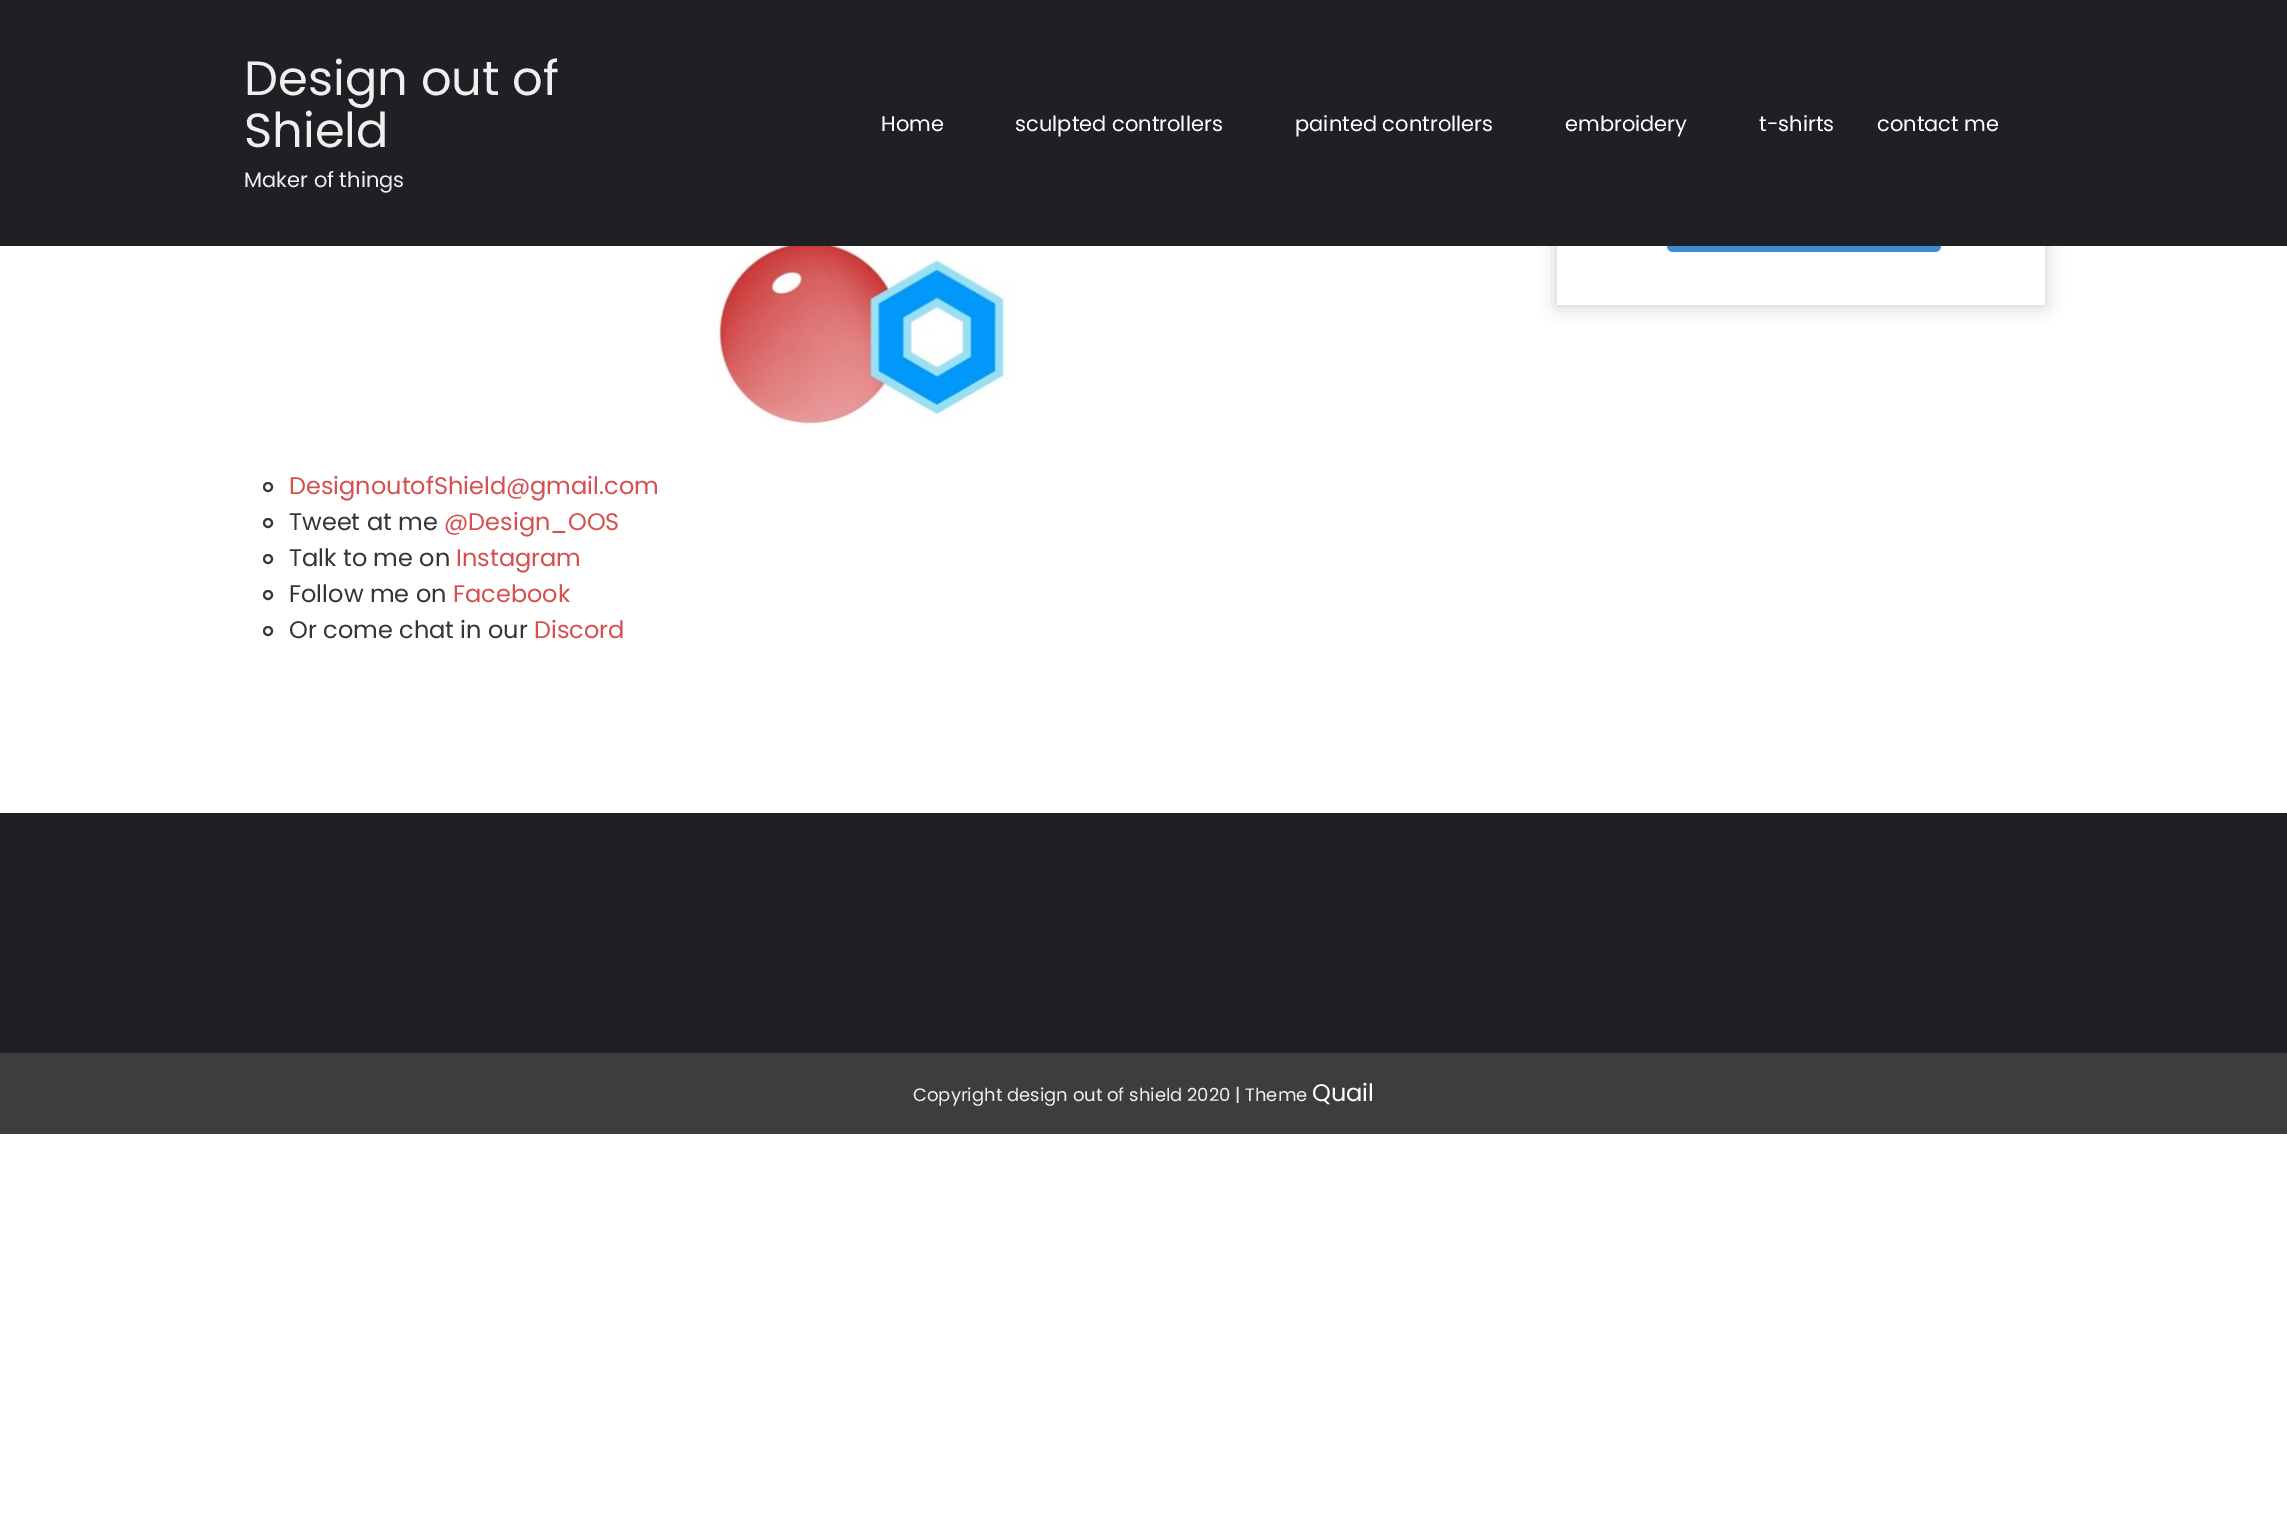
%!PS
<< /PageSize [2287 1518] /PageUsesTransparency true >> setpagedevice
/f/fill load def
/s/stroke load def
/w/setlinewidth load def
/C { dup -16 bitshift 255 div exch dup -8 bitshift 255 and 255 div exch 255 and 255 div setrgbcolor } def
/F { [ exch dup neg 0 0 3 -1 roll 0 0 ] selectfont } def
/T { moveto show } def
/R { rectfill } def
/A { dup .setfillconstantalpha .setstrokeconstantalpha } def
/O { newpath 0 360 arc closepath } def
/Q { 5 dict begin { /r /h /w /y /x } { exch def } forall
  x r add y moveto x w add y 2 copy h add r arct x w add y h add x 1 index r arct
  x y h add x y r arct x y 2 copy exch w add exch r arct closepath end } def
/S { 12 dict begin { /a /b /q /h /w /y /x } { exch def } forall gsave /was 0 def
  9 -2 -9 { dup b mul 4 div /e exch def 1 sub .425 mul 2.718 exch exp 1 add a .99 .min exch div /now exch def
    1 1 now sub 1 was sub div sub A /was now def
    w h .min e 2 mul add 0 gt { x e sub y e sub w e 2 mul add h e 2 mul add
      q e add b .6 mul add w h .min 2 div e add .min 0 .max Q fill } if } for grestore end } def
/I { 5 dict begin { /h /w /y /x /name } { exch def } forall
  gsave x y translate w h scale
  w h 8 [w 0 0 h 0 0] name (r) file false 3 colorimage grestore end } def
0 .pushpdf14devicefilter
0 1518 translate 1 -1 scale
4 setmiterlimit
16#FFFFFF C
0 0 2287 1518 R
16#000000 C
1557 122 488 184 0 9 .2 S
16#FFFFFF C
1557 246 488 59 R
16#408BD1 C
1667 201 274 51 6 Q f
16#1F2024 C
0 0 2287 246 R
/Poppins-Regular 48 F
16#EFEFEF C
(Design out of) 244 95 T
(Shield) 244 147 T
/Poppins-Regular 21 F
(Maker of things) 244 187 T
16#FFFFFF C
(Home) 881 131 T
(sculpted controllers) 1015 131 T
(painted controllers) 1295 131 T
(embroidery) 1565 131 T
(t-shirts) 1759 131 T
(contact me) 1877 131 T
(1.rgb) 712 246 300 180 I
16#353535 C
2 w
268 487 4 O s
/Poppins-Regular 24 F
16#D65050 C
(DesignoutofShield@gmail.com) 289 494 T
16#353535 C
268 523 4 O s
(Tweet at me) 289 530 T
16#D65050 C
(@Design_OOS) 444 530 T
16#353535 C
268 559 4 O s
(Talk to me on) 289 566 T
16#D65050 C
(Instagram) 456 566 T
16#353535 C
268 595 4 O s
(Follow me on) 289 602 T
16#D65050 C
(Facebook) 453 602 T
16#353535 C
268 631 4 O s
(Or come chat in our) 289 638 T
16#D65050 C
(Discord) 534 638 T
16#1F2024 C
0 813 2287 240 R
16#3D3D3D C
0 1053 2287 81 R
/Poppins-Regular 18 F
16#EFEFEF C
(Copyright design out of shield 2020 | Theme) 913 1101 T
/Poppins-Regular 24 F
16#FFFFFF C
(Quail) 1312 1101 T
.poppdf14devicefilter showpage
